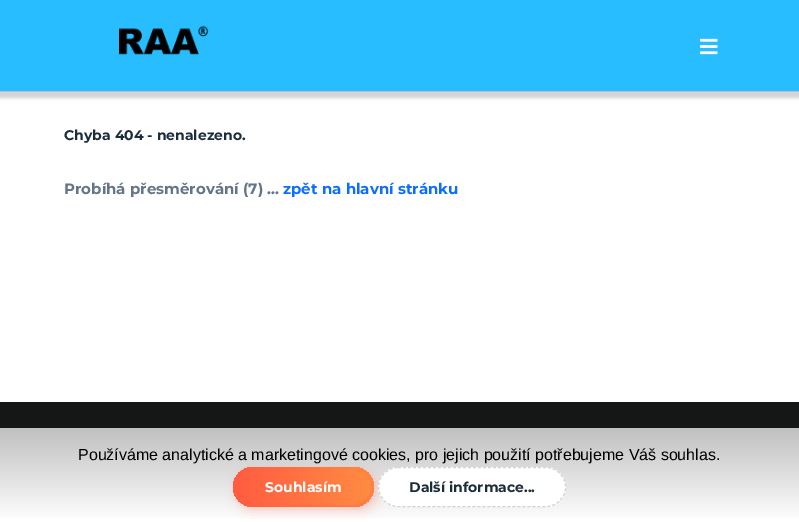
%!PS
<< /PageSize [799 522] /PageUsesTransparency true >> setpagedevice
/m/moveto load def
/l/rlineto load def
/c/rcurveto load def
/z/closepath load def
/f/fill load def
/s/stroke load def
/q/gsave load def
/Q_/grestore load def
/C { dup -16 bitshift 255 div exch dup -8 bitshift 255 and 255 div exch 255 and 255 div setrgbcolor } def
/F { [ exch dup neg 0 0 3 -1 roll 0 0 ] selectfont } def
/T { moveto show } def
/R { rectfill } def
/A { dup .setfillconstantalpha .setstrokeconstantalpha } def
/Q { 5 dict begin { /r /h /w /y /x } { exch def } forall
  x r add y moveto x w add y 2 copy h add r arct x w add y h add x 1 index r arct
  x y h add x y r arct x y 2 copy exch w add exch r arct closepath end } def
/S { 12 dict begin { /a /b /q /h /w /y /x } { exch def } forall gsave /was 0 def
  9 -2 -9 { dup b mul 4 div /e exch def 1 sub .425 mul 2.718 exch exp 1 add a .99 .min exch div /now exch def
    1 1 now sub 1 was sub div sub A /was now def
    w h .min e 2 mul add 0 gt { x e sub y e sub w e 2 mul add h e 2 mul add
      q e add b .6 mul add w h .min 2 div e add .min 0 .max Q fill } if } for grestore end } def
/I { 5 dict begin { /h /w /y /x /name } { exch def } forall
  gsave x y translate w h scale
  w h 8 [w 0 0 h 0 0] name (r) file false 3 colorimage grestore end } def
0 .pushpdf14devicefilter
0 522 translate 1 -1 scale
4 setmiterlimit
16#FFFFFF C
0 0 799 522 R
16#D3D3D3 C
-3 0 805 98 0 1.5 1 S
16#27BDFF C
0 0 799 91 R
16#C0C0C0 C
0 91 799 1 R
(1.rgb) 119 25 90 30 I
(2.rgb) 700 38 18 17 I
/Montserrat-Bold 14 F
16#1C2D3A C
(Chyba 404 - nenalezeno.) 64 140 T
/Montserrat-Bold 15 F
16#647589 C
(Probíhá přesměrování \(7\) ...) 64 194 T
16#0D6EFD C
(zpět na hlavní stránku) 283 194 T
16#151716 C
0 402 799 26 R
q 0 428 m 799 0 l 0 90 l -799 0 l z clip newpath
<< /ShadingType 2 /ColorSpace /DeviceRGB /Coords [400 428 400 522] /Extend [true true] /Function << /FunctionType 2 /Domain [0 1] /C0 [.753 .753 .753] /C1 [1 1 1] /N 1 >> >> shfill Q_
/LiberationSans-Regular 16 F
16#000000 C
(Používáme analytické a marketingové cookies, pro jejich použití potřebujeme Váš souhlas.) 78 460 T
q
233 467 141 40 20 Q clip newpath
q 233 478 m 2 0 l 0 18 l -2 0 l z clip newpath
<< /ShadingType 2 /ColorSpace /DeviceRGB /Coords [-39 487 235 487] /Extend [true true] /Function << /FunctionType 3 /Domain [0 1] /Functions [<< /FunctionType 2 /Domain [0 1] /C0 [1 .361 .255] /C1 [1 .549 .255] /N 1 >> << /FunctionType 2 /Domain [0 1] /C0 [1 .549 .255] /C1 [1 .361 .255] /N 1 >>] /Bounds [.51] /Encode [0 1 0 1] >> >> shfill Q_
q 235 467 m 119 0 l 11 0 20 9 20 20 c 0 11 -9 20 -20 20 c -119 0 l z clip newpath
<< /ShadingType 2 /ColorSpace /DeviceRGB /Coords [235 487 509 487] /Extend [true true] /Function << /FunctionType 3 /Domain [0 1] /Functions [<< /FunctionType 2 /Domain [0 1] /C0 [1 .361 .255] /C1 [1 .549 .255] /N 1 >> << /FunctionType 2 /Domain [0 1] /C0 [1 .549 .255] /C1 [1 .361 .255] /N 1 >>] /Bounds [.51] /Encode [0 1 0 1] >> >> shfill Q_
Q_
q
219 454 m 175 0 l 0 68 l -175 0 l z 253 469 m 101 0 l 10 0 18 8 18 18 c 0 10 -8 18 -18 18 c -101 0 l -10 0 -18 -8 -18 -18 c 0 -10 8 -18 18 -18 c z eoclip newpath
16#FF5C41 C
238 473 137 36 18 6 .35 S
Q_
/Montserrat-Bold 14 F
16#FFFFFF C
(Souhlasím) 265 492 T
378 467 188 40 20 Q f
16#D2D2D2 C
[3 2] 0 setdash
398 467.5 m 148 0 l 11 0 19.5 8.5 19.5 19.5 c 0 11 -8.5 19.5 -19.5 19.5 c -148 0 l -11 0 -19.5 -8.5 -19.5 -19.5 c 0 -11 8.5 -19.5 19.5 -19.5 c z s
16#1C2D3A C
(Další informace...) 409 492 T
.poppdf14devicefilter showpage
